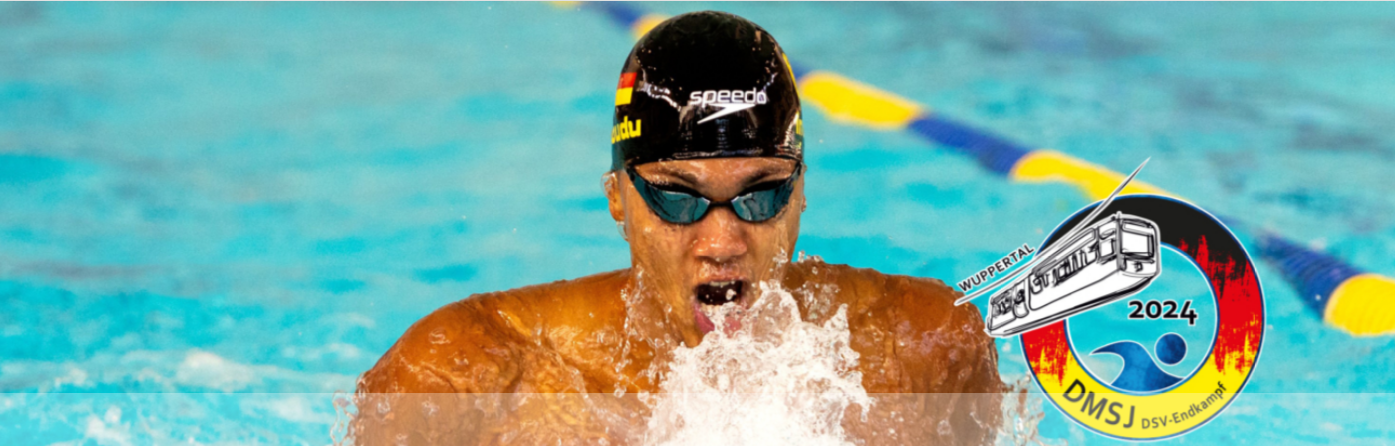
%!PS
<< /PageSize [1395 446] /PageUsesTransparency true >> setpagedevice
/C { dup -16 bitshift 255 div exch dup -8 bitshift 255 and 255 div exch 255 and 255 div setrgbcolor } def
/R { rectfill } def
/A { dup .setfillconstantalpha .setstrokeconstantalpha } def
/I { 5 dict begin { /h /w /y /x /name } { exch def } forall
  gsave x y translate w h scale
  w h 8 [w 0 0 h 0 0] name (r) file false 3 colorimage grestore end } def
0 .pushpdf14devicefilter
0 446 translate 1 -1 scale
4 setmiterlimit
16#E1E1E1 C
0 0 1395 446 R
(1.rgb) 0 1 1395 445 I
0.3 A
16#FFFFFF C
0 393 1395 53 R
.poppdf14devicefilter showpage
